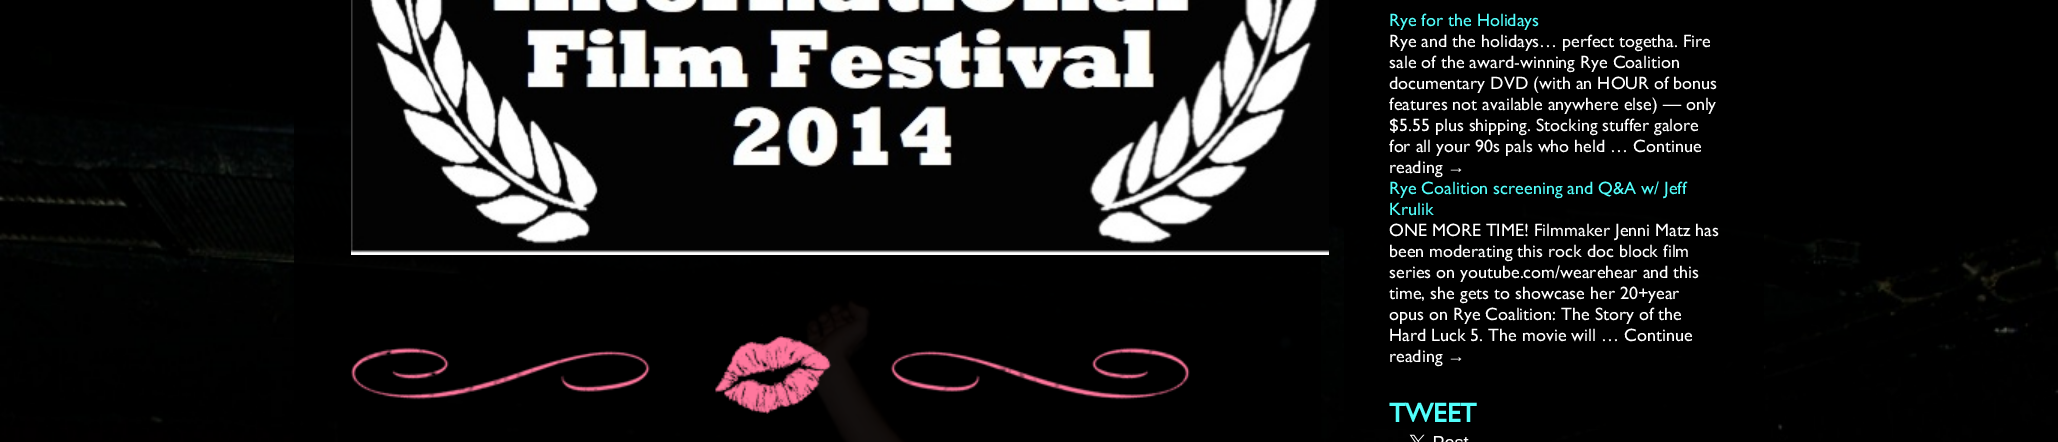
%!PS
<< /PageSize [2058 442] /PageUsesTransparency true >> setpagedevice
/C { dup -16 bitshift 255 div exch dup -8 bitshift 255 and 255 div exch 255 and 255 div setrgbcolor } def
/F { [ exch dup neg 0 0 3 -1 roll 0 0 ] selectfont } def
/T { moveto show } def
/R { rectfill } def
/A { dup .setfillconstantalpha .setstrokeconstantalpha } def
/I { 5 dict begin { /h /w /y /x /name } { exch def } forall
  gsave x y translate w h scale
  w h 8 [w 0 0 h 0 0] name (r) file false 3 colorimage grestore end } def
0 .pushpdf14devicefilter
0 442 translate 1 -1 scale
4 setmiterlimit
16#FFFFFF C
0 0 2058 442 R
(1.rgb) 0 0 2058 442 I
0.9 A
16#000000 C
294 0 1027 442 R
1 A
(2.rgb) 351 336 839 78 I
(3.rgb) 351 0 978 255 I
0.9 A
1344 100 420 329 R
/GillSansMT-Regular 18 F
1 A
16#51FEFB C
(Rye for the Holidays) 1389 26 T
16#FFFFFF C
(Rye and the holidays… perfect togetha. Fire) 1389 47 T
(sale of the award-winning Rye Coalition) 1389 68 T
(documentary DVD \(with an HOUR of bonus) 1389 89 T
(features not available anywhere else\) — only) 1389 110 T
($5.55 plus shipping. Stocking stuffer galore) 1389 131 T
(for all your 90s pals who held … Continue) 1389 152 T
(reading) 1389 173 T
/LiberationSans-Regular 18 F
(→) 1447 173 T
/GillSansMT-Regular 18 F
16#51FEFB C
(Rye Coalition screening and Q&A w/ Jeff) 1389 194 T
(Krulik) 1389 215 T
16#FFFFFF C
(ONE MORE TIME! Filmmaker Jenni Matz has) 1389 236 T
(been moderating this rock doc block film) 1389 257 T
(series on youtube.com/wearehear and this) 1389 278 T
(time, she gets to showcase her 20+year) 1389 299 T
(opus on Rye Coalition: The Story of the) 1389 320 T
(Hard Luck 5. The movie will … Continue) 1389 341 T
(reading) 1389 362 T
/LiberationSans-Regular 18 F
(→) 1447 362 T
/GillSansMT-Bold 27 F
16#51FEFB C
(TWEET) 1389 422 T
(4.rgb) 1409 434 60 8 I
.poppdf14devicefilter showpage
